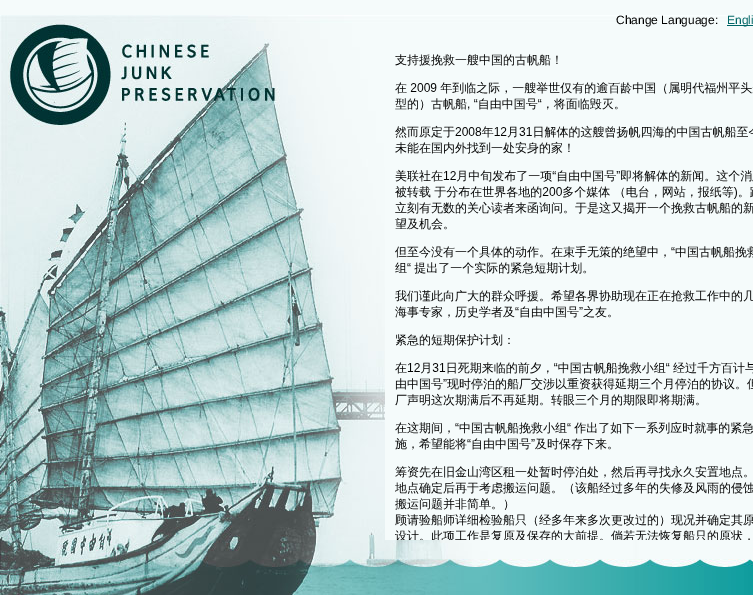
%!PS
<< /PageSize [753 595] >> setpagedevice
/C { dup -16 bitshift 255 div exch dup -8 bitshift 255 and 255 div exch 255 and 255 div setrgbcolor } def
/F { [ exch dup neg 0 0 3 -1 roll 0 0 ] selectfont } def
/T { moveto show } def
/R { rectfill } def
/I { 5 dict begin { /h /w /y /x /name } { exch def } forall
  gsave x y translate w h scale
  w h 8 [w 0 0 h 0 0] name (r) file false 3 colorimage grestore end } def
0 595 translate 1 -1 scale
4 setmiterlimit
16#F5FBFB C
0 0 753 595 R
(1.rgb) 0 15 753 580 I
/LiberationSans-Regular 12 F
16#000000 C
(Change Language:) 616 24 T
16#006666 C
727 25 26 1 R
(Engli) 727 24 T
(2.rgb) 385 54 368 486 I
showpage
